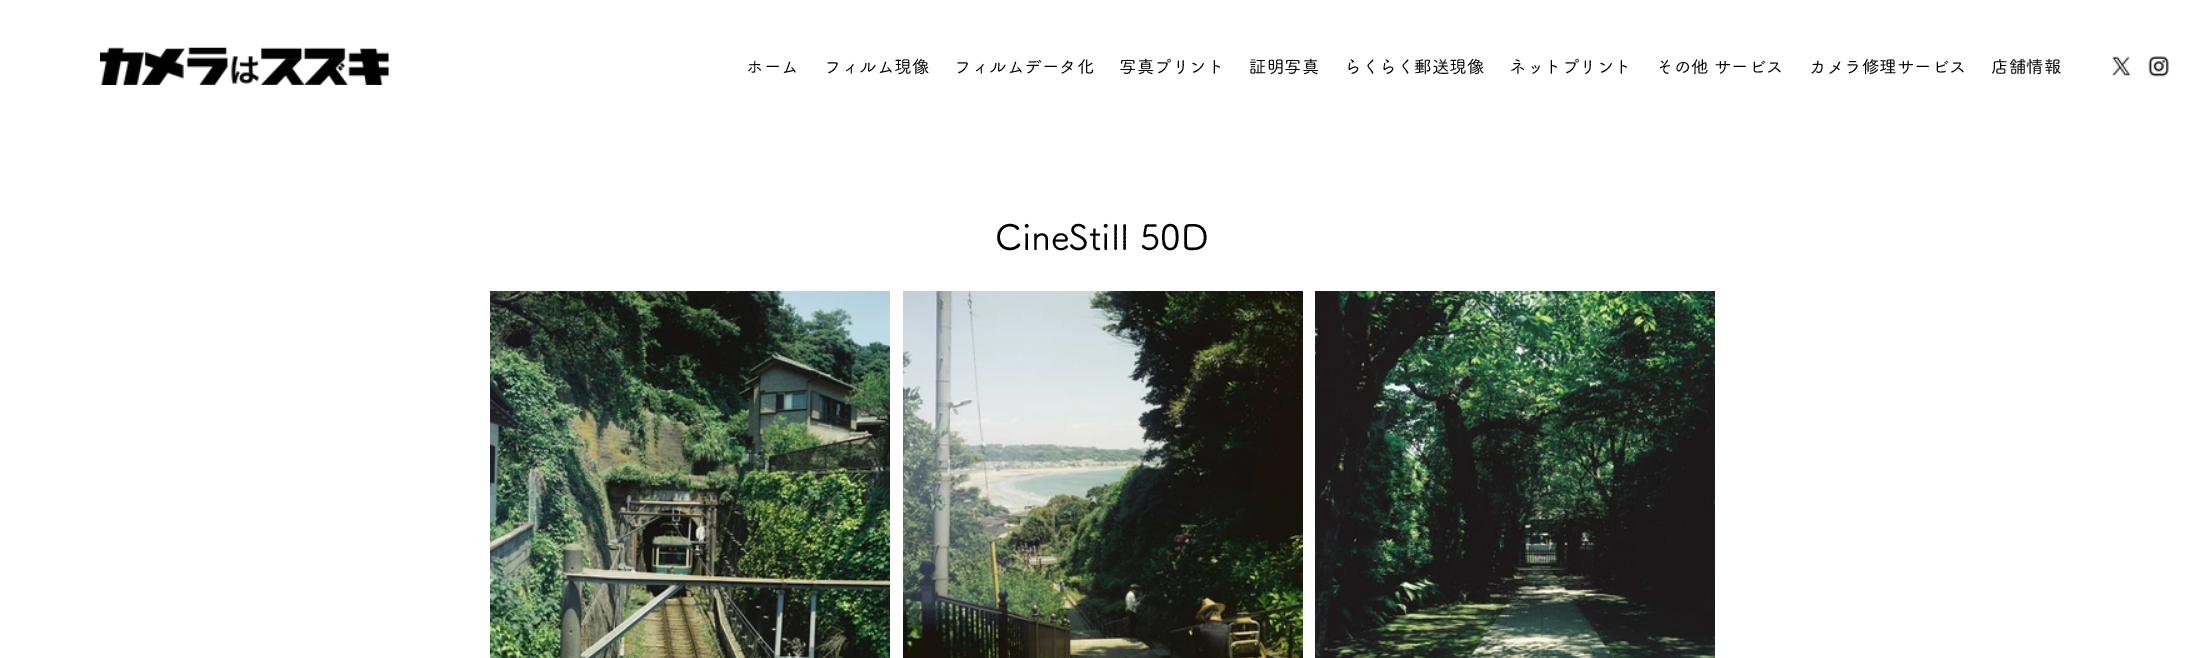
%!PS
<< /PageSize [2204 658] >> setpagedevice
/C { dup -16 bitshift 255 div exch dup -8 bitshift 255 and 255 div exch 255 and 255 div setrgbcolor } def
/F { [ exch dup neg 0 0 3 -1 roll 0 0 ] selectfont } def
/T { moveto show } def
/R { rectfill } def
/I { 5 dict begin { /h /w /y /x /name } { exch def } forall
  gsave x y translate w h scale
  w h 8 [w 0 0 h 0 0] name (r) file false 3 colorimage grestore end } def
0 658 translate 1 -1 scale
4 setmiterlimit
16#FFFFFF C
0 0 2204 658 R
(1.rgb) 100 47 289 38 I
/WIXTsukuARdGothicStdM-Medium 17.5 F
16#000000 C
(ホーム) 746 73 T
(フィルム現像) 824 73 T
(フィルムデータ化) 954 73 T
(写真プリント) 1119 73 T
(証明写真) 1249 73 T
(らくらく郵送現像) 1344 73 T
(ネットプリント) 1509 73 T
(その他 サービス) 1656 73 T
(カメラ修理サービス) 1809 73 T
(店舗情報) 1991 73 T
(2.rgb) 2112 56 19 21 I
(3.rgb) 2148 56 21 21 I
/WIXTsukuARdGothicStdM-Medium 35 F
(CineStill 50D) 995 250 T
(4.rgb) 490 291 400 367 I
(5.rgb) 903 291 400 367 I
(6.rgb) 1315 291 400 367 I
showpage
